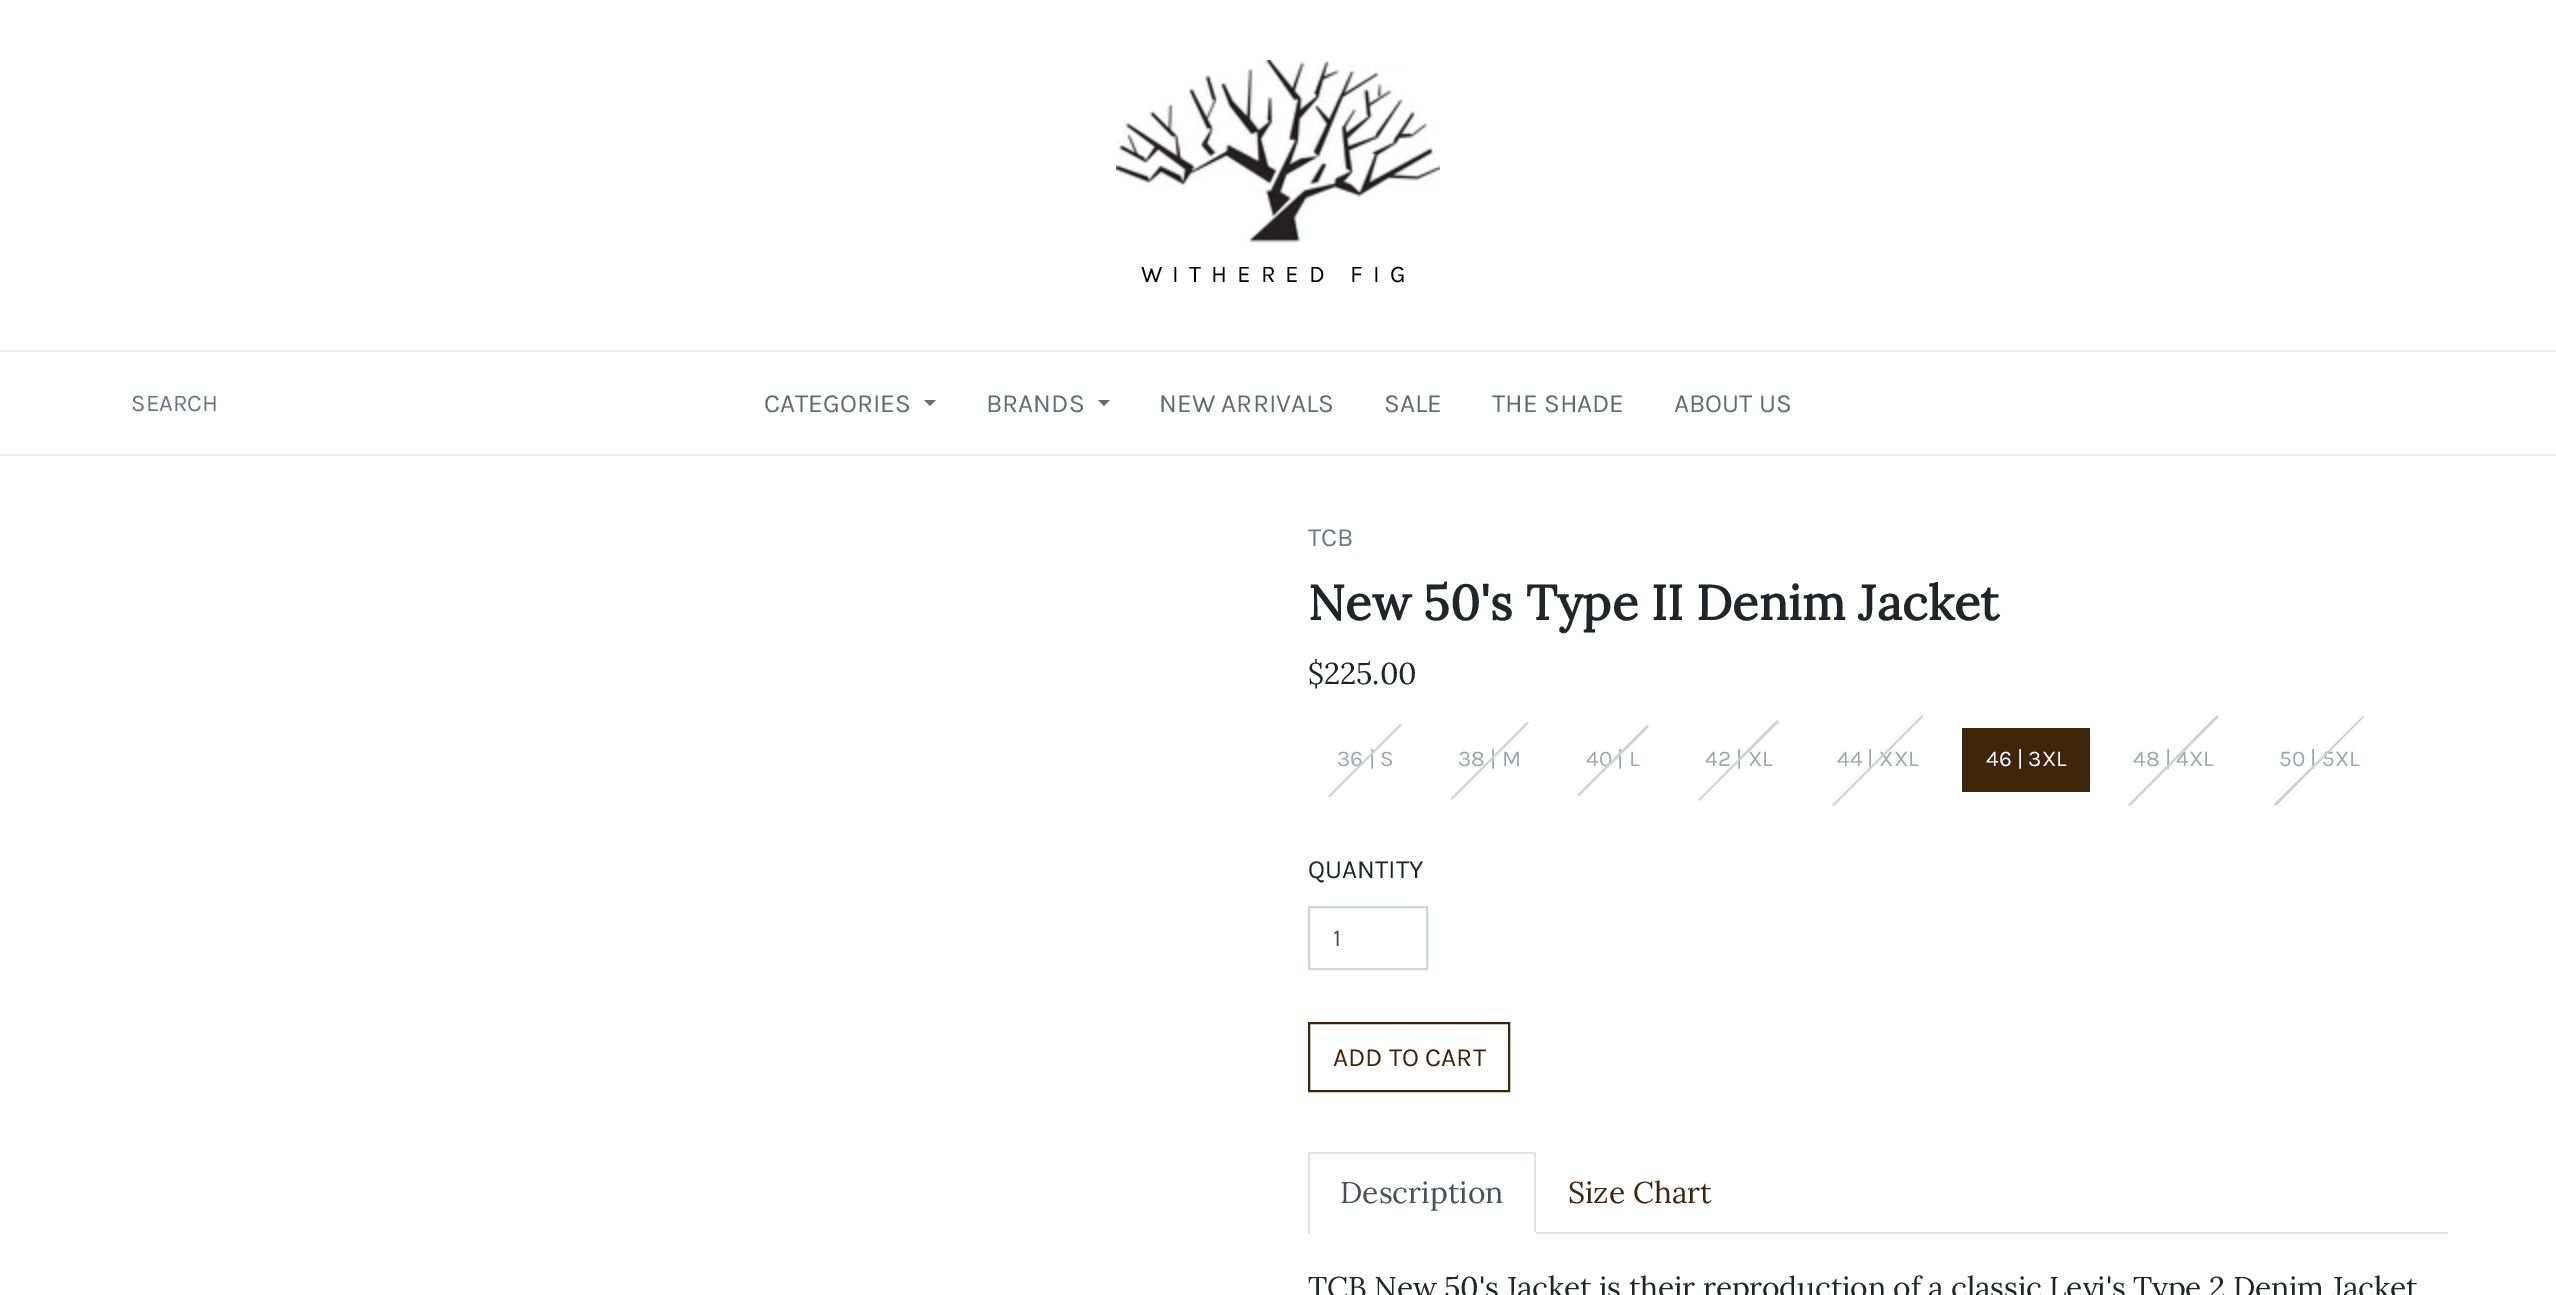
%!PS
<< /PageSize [2556 1295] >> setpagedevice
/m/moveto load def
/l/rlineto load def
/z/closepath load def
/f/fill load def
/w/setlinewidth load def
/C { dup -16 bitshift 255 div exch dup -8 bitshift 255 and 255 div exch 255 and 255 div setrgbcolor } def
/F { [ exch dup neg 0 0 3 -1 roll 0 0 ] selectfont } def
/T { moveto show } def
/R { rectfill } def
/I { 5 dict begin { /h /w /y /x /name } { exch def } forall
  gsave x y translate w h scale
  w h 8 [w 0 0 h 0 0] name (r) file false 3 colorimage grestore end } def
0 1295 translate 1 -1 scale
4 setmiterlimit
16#FFFFFF C
0 0 2556 1295 R
(1.rgb) 1116 60 324 183 I
/Karla-Regular 24 F
16#000000 C
1141 282 m 10 0 (WITHERED FIG) ashow
16#ECEEEF C
0 350 2556 2 R
0 454 2556 2 R
16#6C757D C
(SEARCH) 131 411 T
/Karla-Regular 26.25 F
16#636C72 C
(CATEGORIES) 764 412 T
924 400 m 12 0 l -6 6 l z f
(BRANDS) 986 412 T
1098 400 m 12 0 l -6 6 l z f
(NEW ARRIVALS) 1159 412 T
(SALE) 1384 412 T
(THE SHADE) 1492 412 T
(ABOUT US) 1674 412 T
16#6C7986 C
(TCB) 1308 546 T
/Lora-Bold 48.7 F
16#212529 C
(New 50's Type II Denim Jacket) 1308 620 T
/Lora-Regular 30 F
($225.00) 1308 684 T
/Karla-Regular 22.5 F
16#9FA5AB C
(36 | S) 1337 766 T
16#CFD2D5 C
1328 796 m 72 -72 l 2 1 l -72 72 l z f
16#9FA5AB C
(38 | M) 1458 766 T
16#CFD2D5 C
1451 798 m 76 -76 l 2 1 l -77 77 l z f
16#9FA5AB C
(40 | L) 1586 766 T
16#CFD2D5 C
1577 795 m 70 -70 l 2 2 l -70 69 l z f
16#9FA5AB C
(42 | XL) 1705 766 T
16#CFD2D5 C
1698 800 m 79 -80 l 2 2 l -80 79 l z f
16#9FA5AB C
(44 | XXL) 1837 766 T
16#CFD2D5 C
1832 805 m 90 -90 l 1 2 l -89 89 l z f
16#3F250B C
1962 728 128 64 R
16#FFFFFF C
(46 | 3XL) 1986 766 T
16#9FA5AB C
(48 | 4XL) 2133 766 T
16#CFD2D5 C
2128 805 m 89 -90 l 2 2 l -89 89 l z f
16#9FA5AB C
(50 | 5XL) 2279 766 T
16#CFD2D5 C
2274 804 m 89 -88 l 1 1 l -88 89 l z f
/Karla-Regular 26.25 F
16#212529 C
(QUANTITY) 1308 878 T
16#CED4DA C
2 w
1309 907 118 62 rectstroke
/Karla-Regular 24 F
16#464A4C C
(1) 1333 946 T
16#3F250B C
1309 1023 200 68 rectstroke
/Karla-Regular 26.25 F
(ADD TO CART) 1333 1066 T
16#DEE2E6 C
1536 1232 912 2 R
1308 1152 228 2 R
1534 1152 2 82 R
16#FFFFFF C
1534 1232 2 2 R
16#DEE2E6 C
1308 1152 2 82 R
/Lora-Regular 30 F
16#495057 C
(Description) 1340 1203 T
16#3F250B C
(Size Chart) 1568 1203 T
16#212529 C
1308 1298 m -.2 0 (TCB New 50's Jacket is their reproduction of a classic Levi's Type 2 Denim Jacket) ashow
showpage
